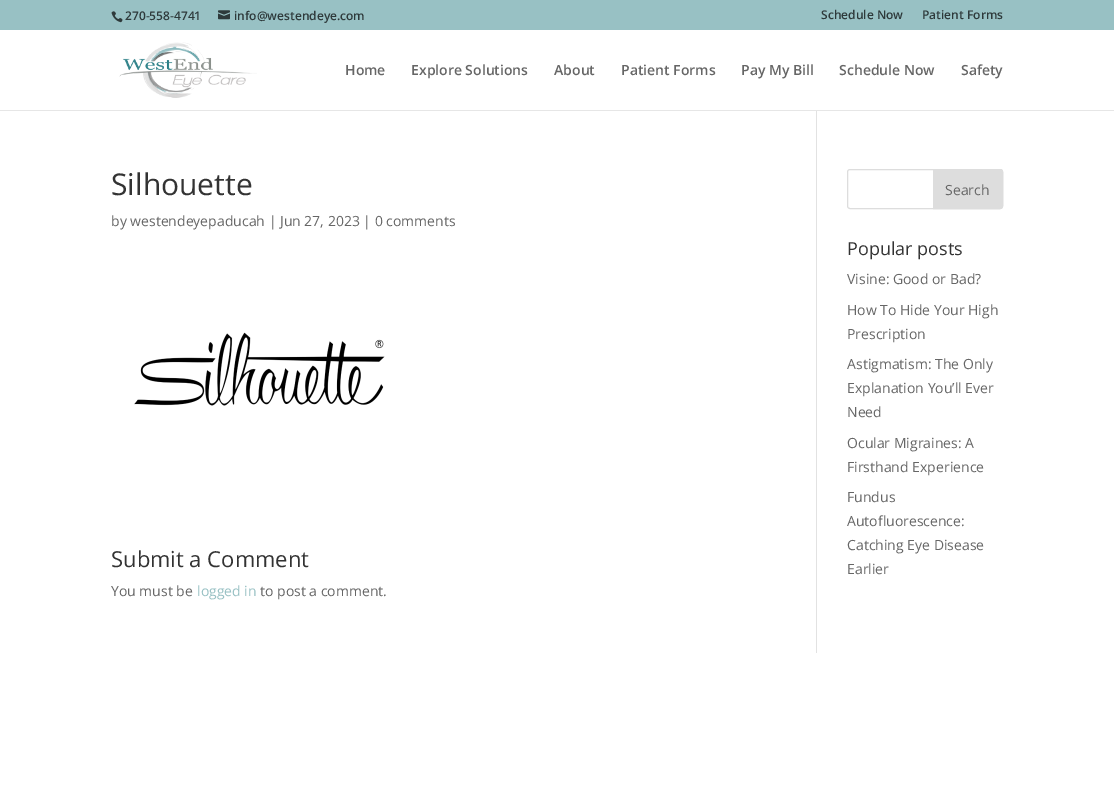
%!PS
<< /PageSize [1114 799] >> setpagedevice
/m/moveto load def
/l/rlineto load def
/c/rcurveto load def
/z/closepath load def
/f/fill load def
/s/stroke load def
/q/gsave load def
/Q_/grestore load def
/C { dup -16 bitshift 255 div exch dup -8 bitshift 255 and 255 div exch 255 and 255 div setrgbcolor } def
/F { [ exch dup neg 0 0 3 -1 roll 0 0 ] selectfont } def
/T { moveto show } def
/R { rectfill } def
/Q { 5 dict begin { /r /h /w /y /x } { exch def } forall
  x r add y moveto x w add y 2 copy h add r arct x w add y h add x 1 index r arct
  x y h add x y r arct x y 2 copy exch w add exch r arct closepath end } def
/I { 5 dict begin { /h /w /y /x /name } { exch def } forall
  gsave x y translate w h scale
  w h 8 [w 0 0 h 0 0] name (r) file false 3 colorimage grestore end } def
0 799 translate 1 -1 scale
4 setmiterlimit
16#FFFFFF C
0 0 1114 799 R
16#98C1C4 C
0 0 1114 30 R
(1.rgb) 111 11 12 12 I
/OpenSans-SemiBold 12 F
16#2E3A3B C
(270-558-4741) 125 20 T
(2.rgb) 218 10 12 10 I
(info@westendeye.com) 234 20 T
(Schedule Now) 821 19 T
(Patient Forms) 922 19 T
16#E6E6E6 C
0 110 1114 1 R
(3.rgb) 119 42 138 56 I
/OpenSans-SemiBold 14 F
16#666666 C
(Home) 345 75 T
(Explore Solutions) 411 75 T
(About) 554 75 T
(Patient Forms) 621 75 T
(Pay My Bill) 741 75 T
(Schedule Now) 839 75 T
(Safety) 961 75 T
16#E2E2E2 C
816 111 1 542 R
/OpenSans-Regular 30 F
16#333333 C
(Silhouette) 111 195 T
/OpenSans-Regular 14 F
16#666666 C
(by westendeyepaducah | Jun 27, 2023 | 0 comments) 111 226 T
(4.rgb) 134 332 251 74 I
/OpenSans-Regular 22 F
16#333333 C
(Submit a Comment) 111 567 T
/OpenSans-Regular 14 F
16#666666 C
(You must be) 111 596 T
16#98C1C4 C
(logged in) 197 596 T
16#666666 C
(to post a comment.) 260 596 T
16#DDDDDD C
847.5 169.5 155 39 2.5 Q s
933.5 169.5 m 66.5 0 l 1.5 0 2.5 1 2.5 2.5 c 0 34 l 0 1.5 -1 2.5 -2.5 2.5 c -66.5 0 l z q f Q_
s
16#666666 C
(Search) 945 195 T
/OpenSans-Regular 18 F
16#333333 C
(Popular posts) 847 255 T
/OpenSans-Regular 14 F
16#666666 C
(Visine: Good or Bad?) 847 284 T
(How To Hide Your High) 847 315 T
(Prescription) 847 339 T
(Astigmatism: The Only) 847 369 T
(Explanation You’ll Ever) 847 393 T
(Need) 847 417 T
(Ocular Migraines: A) 847 448 T
(Firsthand Experience) 847 472 T
(Fundus) 847 502 T
(Autofluorescence:) 847 526 T
(Catching Eye Disease) 847 550 T
(Earlier) 847 574 T
showpage
